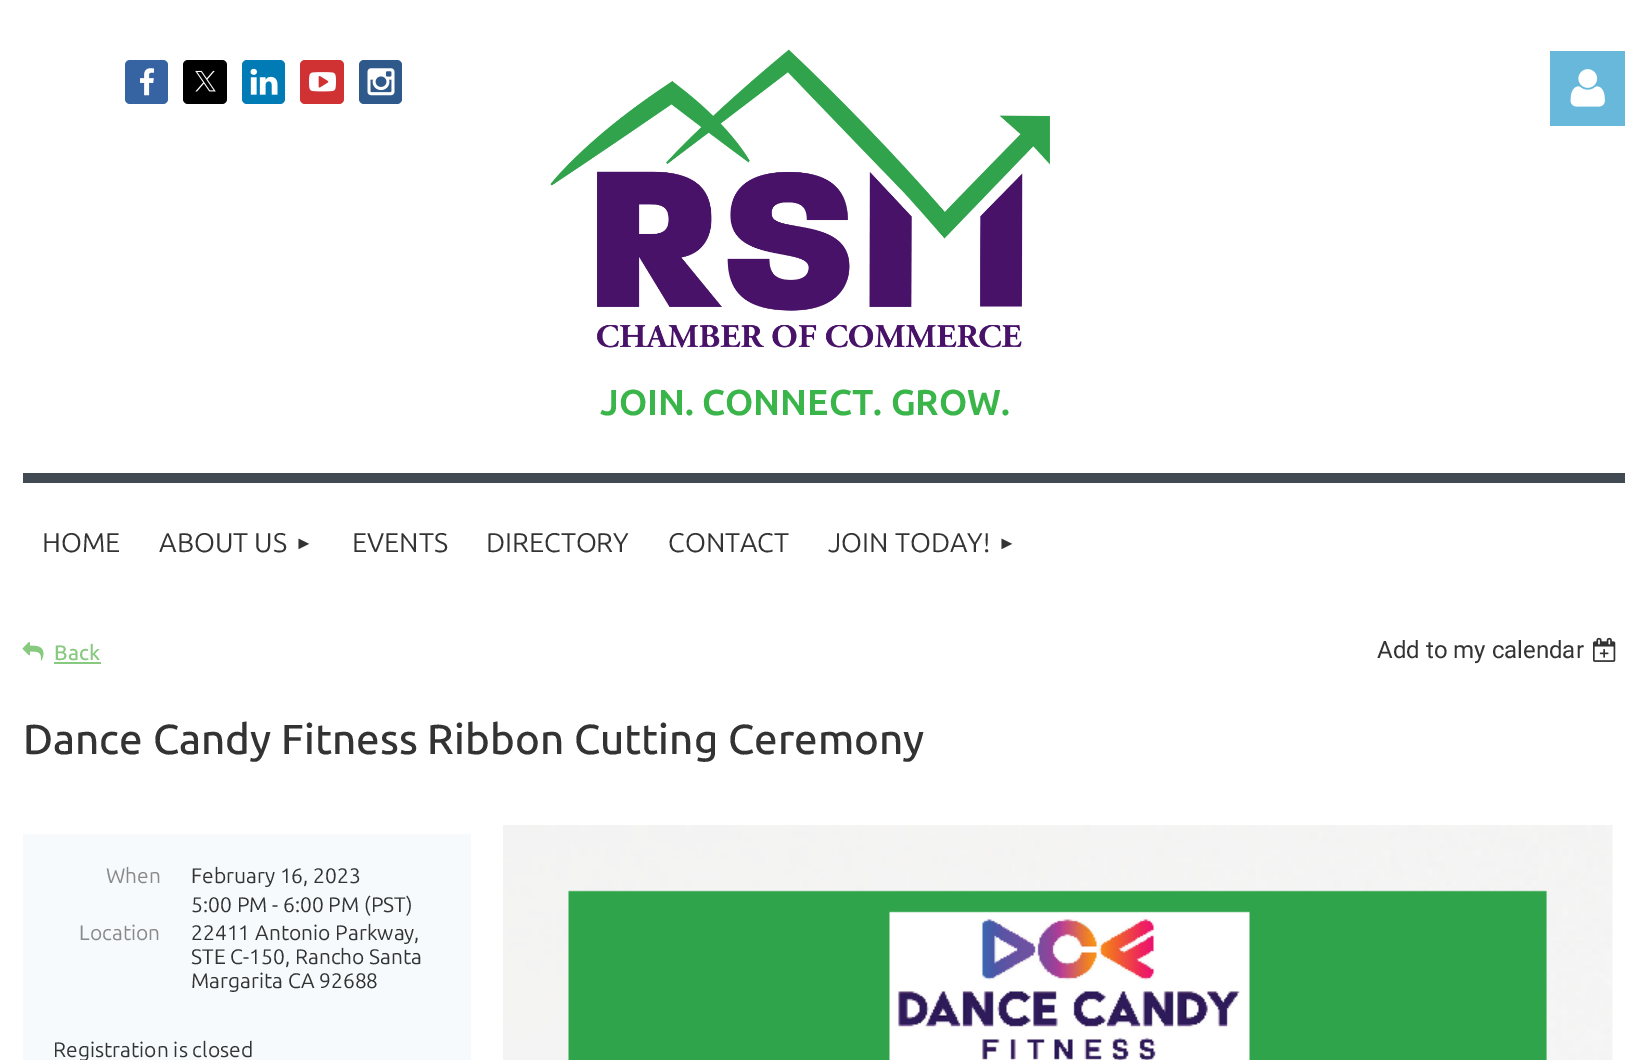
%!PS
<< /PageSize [1646 1060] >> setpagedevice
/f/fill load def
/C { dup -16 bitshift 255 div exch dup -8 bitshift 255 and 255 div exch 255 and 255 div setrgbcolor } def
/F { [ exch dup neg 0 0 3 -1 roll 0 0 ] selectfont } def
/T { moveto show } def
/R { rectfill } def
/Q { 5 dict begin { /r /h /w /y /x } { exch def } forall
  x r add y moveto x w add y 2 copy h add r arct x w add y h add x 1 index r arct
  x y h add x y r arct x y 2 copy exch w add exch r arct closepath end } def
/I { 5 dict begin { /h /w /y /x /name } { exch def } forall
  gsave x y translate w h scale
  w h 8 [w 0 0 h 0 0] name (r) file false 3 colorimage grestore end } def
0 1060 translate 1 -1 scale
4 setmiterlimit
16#FFFFFF C
0 0 1646 1060 R
16#3664A2 C
125 60 43 44 5 Q f
(1.rgb) 140 68 14 28 I
16#000000 C
183 60 44 44 5 Q f
(2.rgb) 195 70 21 22 I
16#007BB6 C
242 60 43 44 5 Q f
(3.rgb) 250 68 28 27 I
16#D03133 C
300 60 44 44 5 Q f
(4.rgb) 309 72 27 20 I
16#2F598A C
359 60 43 44 5 Q f
(5.rgb) 367 68 28 28 I
16#67B8DB C
1550 51 75 75 R
(6.rgb) 1570 69 35 38 I
(7.rgb) 550 49 500 299 I
/Ubuntu-Bold 36 F
16#39B54A C
(JOIN. CONNECT. GROW.) 600 415 T
16#414A53 C
23 473 1602 10 R
/Ubuntu-Regular 27 F
16#333333 C
(HOME) 42 552 T
(ABOUT US) 159 552 T
/LiberationSans-Regular 18 F
(►) 295 549 T
/Ubuntu-Regular 27 F
(EVENTS) 352 552 T
(DIRECTORY) 486 552 T
(CONTACT) 668 552 T
(JOIN TODAY!) 828 552 T
/LiberationSans-Regular 18 F
(►) 998 549 T
(8.rgb) 22 641 22 20 I
/Ubuntu-Medium 21 F
16#87C97F C
(Back) 54 660 T
54 662 47 2 R
/Roboto-Regular 24 F
16#333333 C
(Add to my calendar) 1377 658 T
(9.rgb) 1593 637 23 25 I
/Ubuntu-Medium 42 F
(Dance Candy Fitness Ribbon Cutting Ceremony) 23 754 T
16#F6FAFD C
23 834 448 226 R
/Ubuntu-Regular 21 F
16#898989 C
(When) 106 883 T
16#333333 C
(February 16, 2023) 191 883 T
(5:00 PM - 6:00 PM \(PST\)) 191 912 T
16#898989 C
(Location) 79 940 T
16#333333 C
(22411 Antonio Parkway,) 191 940 T
(STE C-150, Rancho Santa) 191 964 T
(Margarita CA 92688) 191 988 T
(Registration is closed) 53 1057 T
(10.rgb) 503 825 1110 235 I
showpage
